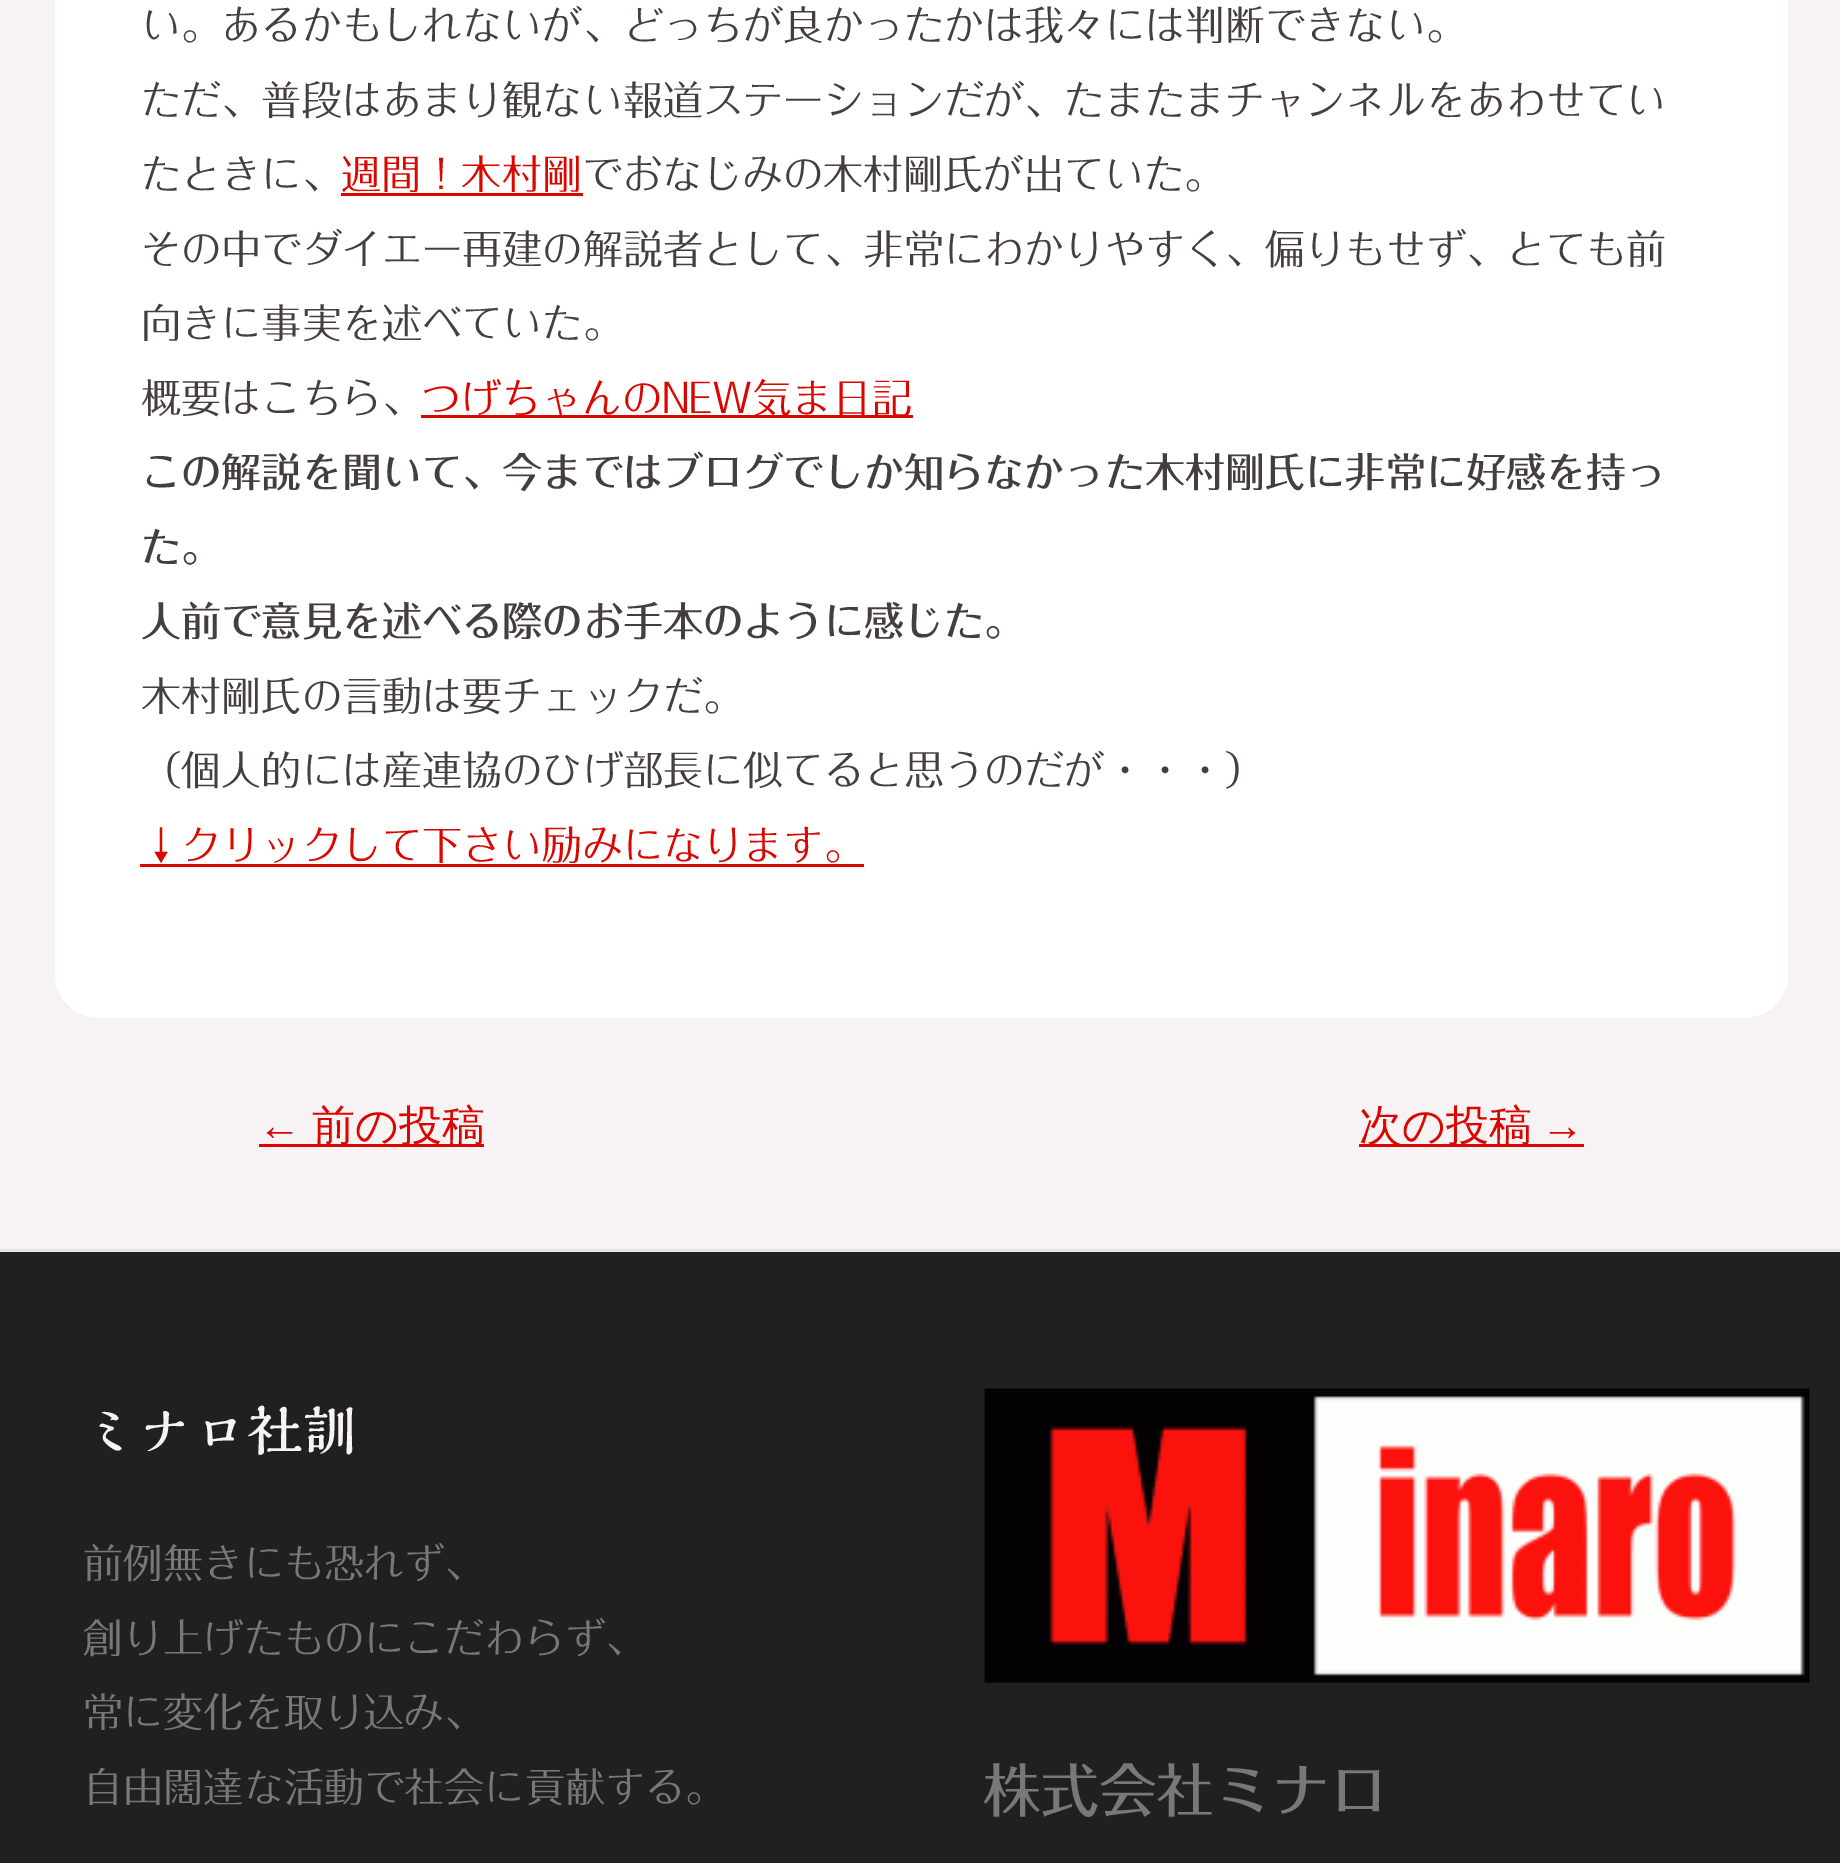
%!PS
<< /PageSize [1840 1863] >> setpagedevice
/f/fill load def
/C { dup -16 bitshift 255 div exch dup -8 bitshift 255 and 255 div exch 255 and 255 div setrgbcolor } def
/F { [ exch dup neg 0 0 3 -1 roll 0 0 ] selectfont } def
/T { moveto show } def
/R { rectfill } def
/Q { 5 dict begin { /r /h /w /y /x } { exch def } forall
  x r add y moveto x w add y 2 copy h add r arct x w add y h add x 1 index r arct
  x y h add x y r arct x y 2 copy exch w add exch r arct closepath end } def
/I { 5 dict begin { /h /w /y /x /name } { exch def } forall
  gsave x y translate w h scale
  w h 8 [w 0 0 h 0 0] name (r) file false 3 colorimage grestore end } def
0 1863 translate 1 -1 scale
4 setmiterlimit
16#F7F3F5 C
0 0 1840 1863 R
16#FFFFFF C
55 -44 1733 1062 44 Q f
/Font-Regular 40.15 F
16#453E3E C
(い。あるかもしれないが、どっちが良かったかは我々には判断できない。) 141 40 T
(ただ、普段はあまり観ない報道ステーションだが、たまたまチャンネルをあわせてい) 141 115 T
(たときに、) 141 189 T
16#D90700 C
(週間！木村剛) 341 189 T
341 193 242 3 R
16#453E3E C
(でおなじみの木村剛氏が出ていた。) 582 189 T
(その中でダイエー再建の解説者として、非常にわかりやすく、偏りもせず、とても前) 141 264 T
(向きに事実を述べていた。) 141 338 T
(概要はこちら、) 141 413 T
16#D90700 C
421 415 492 3 R
(つげちゃんのNEW気ま日記) 421 413 T
/Font-Medium 40.15 F
16#453E3E C
(この解説を聞いて、今まではブログでしか知らなかった木村剛氏に非常に好感を持っ) 141 487 T
(た。) 141 562 T
(人前で意見を述べる際のお手本のように感じた。) 141 636 T
/Font-Regular 40.15 F
(木村剛氏の言動は要チェックだ。) 141 711 T
(（個人的には産連協のひげ部長に似てると思うのだが・・・）) 141 785 T
16#D90700 C
(↓クリックして下さい励みになります。) 141 860 T
140 864 724 3 R
/LiberationSans-Regular 43 F
(←) 258 1140 T
259 1144 225 3 R
/WenQuanYiZenHei-Medium 43 F
(前の投稿) 312 1140 T
1359 1144 225 3 R
(次の投稿) 1359 1140 T
/LiberationSans-Regular 43 F
(→) 1541 1140 T
16#202020 C
0 1252 1840 611 R
16#E6E6E6 C
0 1249 1840 3 R
/Font-SemiBold 55 F
16#F7F3F5 C
(ミナロ社訓) 83 1451 T
/Font-Regular 40.15 F
16#787878 C
(前例無きにも恐れず、) 83 1578 T
(創り上げたものにこだわらず、) 83 1653 T
(常に変化を取り込み、) 83 1727 T
(自由闊達な活動で社会に貢献する。) 83 1802 T
(1.rgb) 984 1388 826 295 I
/Font-Medium 57.75 F
(株式会社ミナロ) 983 1812 T
showpage
